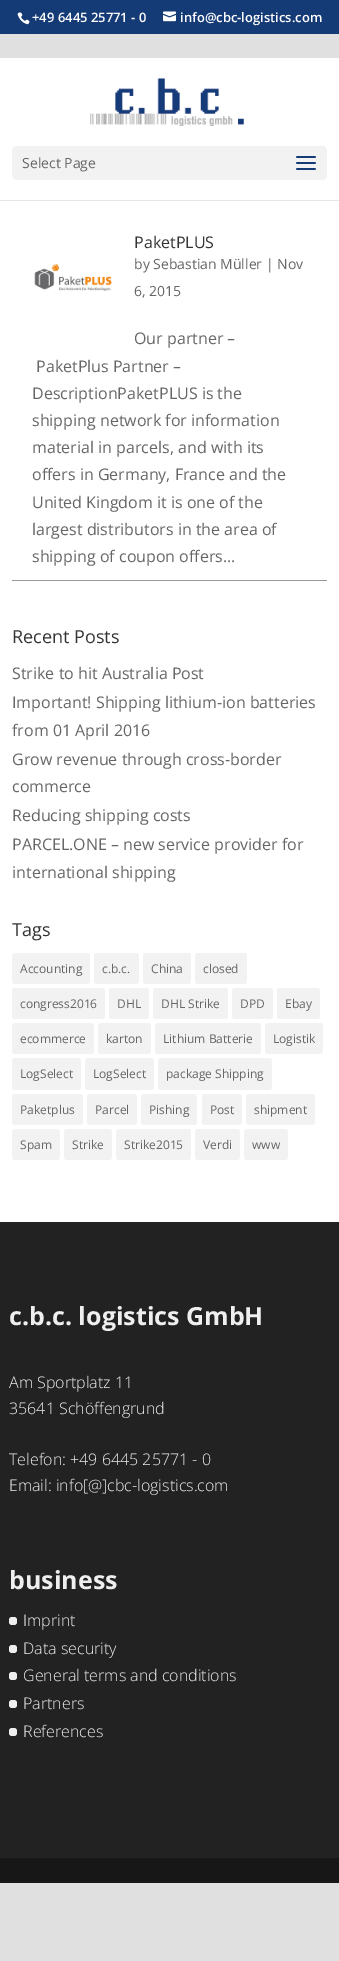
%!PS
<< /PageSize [339 1961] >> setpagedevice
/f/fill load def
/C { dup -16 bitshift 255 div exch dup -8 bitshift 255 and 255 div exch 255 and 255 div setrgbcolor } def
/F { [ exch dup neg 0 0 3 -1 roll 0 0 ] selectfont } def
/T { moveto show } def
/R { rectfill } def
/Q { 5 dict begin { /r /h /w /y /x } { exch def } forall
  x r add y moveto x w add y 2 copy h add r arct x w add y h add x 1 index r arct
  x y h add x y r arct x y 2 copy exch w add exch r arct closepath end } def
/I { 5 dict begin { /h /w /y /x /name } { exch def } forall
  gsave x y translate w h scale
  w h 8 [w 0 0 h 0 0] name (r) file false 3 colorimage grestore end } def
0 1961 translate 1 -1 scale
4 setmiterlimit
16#E0E0E0 C
0 0 339 1961 R
16#153B76 C
0 0 339 34 R
(1.rgb) 17 12 13 13 I
/OpenSans-SemiBold 13 F
16#FFFFFF C
(+49 6445 25771 - 0) 32 22 T
(2.rgb) 163 11 13 11 I
(info@cbc-logistics.com) 180 22 T
16#E6E6E6 C
0 200 339 1 R
16#FFFFFF C
0 58 339 142 R
(3.rgb) 90 78 154 48 I
16#F2F2F2 C
12 146 315 34 5 Q f
/OpenSans-Regular 14 F
16#666666 C
(Select Page) 22 168 T
(4.rgb) 296 156 20 14 I
16#FFFFFF C
0 201 339 1021 R
16#999999 C
12 580 315 1 R
/OpenSans-Regular 16 F
16#333333 C
(PaketPLUS) 134 248 T
(5.rgb) 34 264 78 27 I
/OpenSans-Regular 14 F
16#666666 C
(by Sebastian Müller | Nov) 134 269 T
(6, 2015) 134 296 T
/OpenSans-Regular 16 F
(Our partner –) 134 344 T
(PaketPlus Partner –) 36 372 T
(DescriptionPaketPLUS is the) 32 399 T
(shipping network for information) 32 426 T
(material in parcels, and with its) 32 453 T
(offers in Germany, France and the) 32 480 T
(United Kingdom it is one of the) 32 508 T
(largest distributors in the area of) 32 535 T
(shipping of coupon offers...) 32 562 T
/OpenSans-Regular 18 F
16#333333 C
(Recent Posts) 12 643 T
/OpenSans-Regular 16 F
16#666666 C
(Strike to hit Australia Post) 12 679 T
(Important! Shipping lithium-ion batteries) 12 708 T
(from 01 April 2016) 12 736 T
(Grow revenue through cross-border) 12 765 T
(commerce) 12 792 T
(Reducing shipping costs) 12 821 T
(PARCEL.ONE – new service provider for) 12 850 T
(international shipping) 12 878 T
/OpenSans-Regular 18 F
16#333333 C
(Tags) 12 936 T
16#F2F2F2 C
12 953 78 31 3 Q f
/OpenSans-Regular 12 F
16#666666 C
(Accounting) 20 973 T
16#F2F2F2 C
94 953 45 31 3 Q f
16#666666 C
(c.b.c.) 102 973 T
16#F2F2F2 C
143 953 48 31 3 Q f
16#666666 C
(China) 151 973 T
16#F2F2F2 C
195 953 52 31 3 Q f
16#666666 C
(closed) 203 973 T
16#F2F2F2 C
12 988 93 31 3 Q f
16#666666 C
(congress2016) 20 1008 T
16#F2F2F2 C
109 988 40 31 3 Q f
16#666666 C
(DHL) 117 1008 T
16#F2F2F2 C
153 988 75 31 3 Q f
16#666666 C
(DHL Strike) 161 1008 T
16#F2F2F2 C
232 988 41 31 3 Q f
16#666666 C
(DPD) 240 1008 T
16#F2F2F2 C
277 988 43 31 3 Q f
16#666666 C
(Ebay) 285 1008 T
16#F2F2F2 C
12 1023 82 31 3 Q f
16#666666 C
(ecommerce) 20 1043 T
16#F2F2F2 C
98 1023 53 31 3 Q f
16#666666 C
(karton) 106 1043 T
16#F2F2F2 C
155 1023 106 31 3 Q f
16#666666 C
(Lithium Batterie) 163 1043 T
16#F2F2F2 C
265 1023 58 31 3 Q f
16#666666 C
(Logistik) 273 1043 T
16#F2F2F2 C
12 1058 69 32 3 Q f
16#666666 C
(LogSelect) 20 1078 T
16#F2F2F2 C
85 1058 69 32 3 Q f
16#666666 C
(LogSelect) 93 1078 T
16#F2F2F2 C
158 1058 114 32 3 Q f
16#666666 C
(package Shipping) 166 1078 T
16#F2F2F2 C
12 1094 71 31 3 Q f
16#666666 C
(Paketplus) 20 1114 T
16#F2F2F2 C
87 1094 50 31 3 Q f
16#666666 C
(Parcel) 95 1114 T
16#F2F2F2 C
141 1094 56 31 3 Q f
16#666666 C
(Pishing) 149 1114 T
16#F2F2F2 C
202 1094 40 31 3 Q f
16#666666 C
(Post) 210 1114 T
16#F2F2F2 C
246 1094 69 31 3 Q f
16#666666 C
(shipment) 254 1114 T
16#F2F2F2 C
12 1129 48 31 3 Q f
16#666666 C
(Spam) 20 1149 T
16#F2F2F2 C
64 1129 48 31 3 Q f
16#666666 C
(Strike) 72 1149 T
16#F2F2F2 C
116 1129 75 31 3 Q f
16#666666 C
(Strike2015) 124 1149 T
16#F2F2F2 C
195 1129 45 31 3 Q f
16#666666 C
(Verdi) 203 1149 T
16#F2F2F2 C
244 1129 44 31 3 Q f
16#666666 C
(www) 252 1149 T
16#222222 C
0 1222 339 636 R
/OpenSans-Bold 25 F
16#EFEFEF C
(c.b.c. logistics GmbH) 9 1325 T
/OpenSans-Light 16 F
(Am Sportplatz 11) 9 1388 T
(35641 Schöffengrund) 9 1414 T
(Telefon: +49 6445 25771 - 0) 9 1465 T
(Email: info[@]cbc-logistics.com) 9 1491 T
/OpenSans-Bold 25 F
(business) 9 1589 T
9 1617 8 8 3 Q f
/OpenSans-Light 16 F
(Imprint) 23 1626 T
9 1645 8 8 3 Q f
(Data security) 23 1654 T
9 1672 8 8 3 Q f
(General terms and conditions) 23 1681 T
9 1700 8 8 3 Q f
(Partners) 23 1709 T
9 1728 8 8 3 Q f
(References) 23 1737 T
16#171717 C
0 1858 339 25 R
showpage
